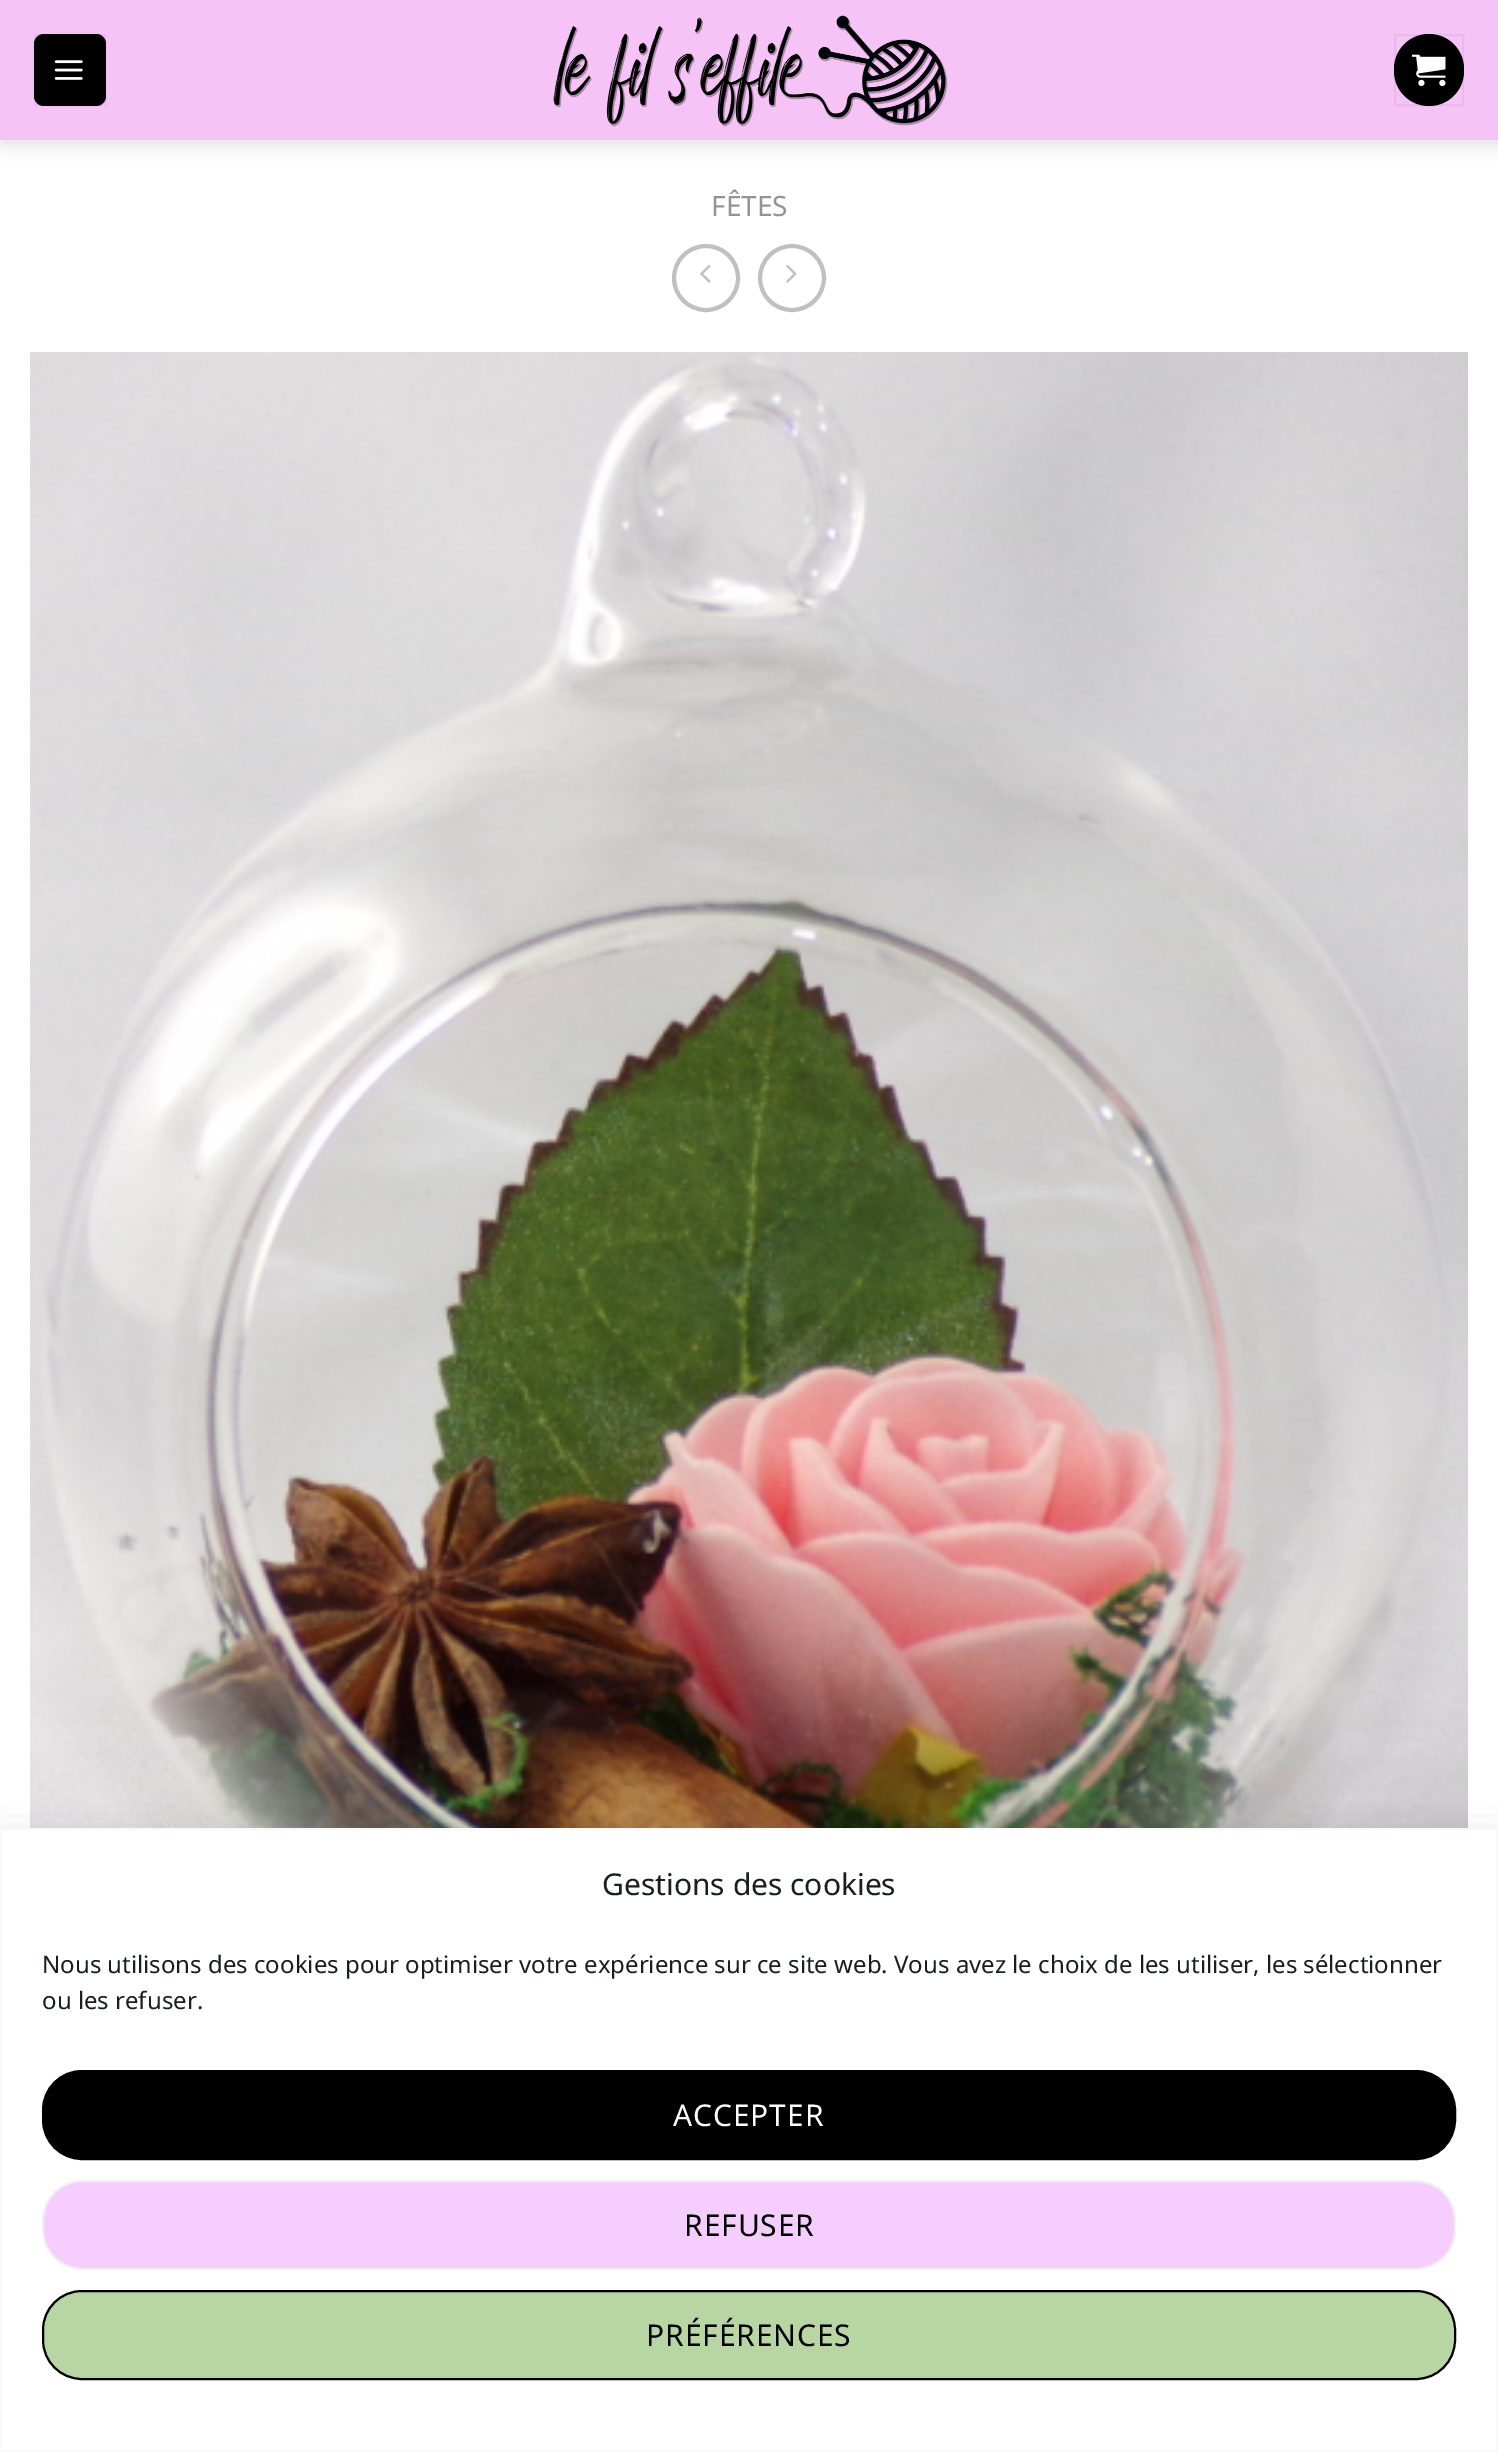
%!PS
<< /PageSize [1498 2452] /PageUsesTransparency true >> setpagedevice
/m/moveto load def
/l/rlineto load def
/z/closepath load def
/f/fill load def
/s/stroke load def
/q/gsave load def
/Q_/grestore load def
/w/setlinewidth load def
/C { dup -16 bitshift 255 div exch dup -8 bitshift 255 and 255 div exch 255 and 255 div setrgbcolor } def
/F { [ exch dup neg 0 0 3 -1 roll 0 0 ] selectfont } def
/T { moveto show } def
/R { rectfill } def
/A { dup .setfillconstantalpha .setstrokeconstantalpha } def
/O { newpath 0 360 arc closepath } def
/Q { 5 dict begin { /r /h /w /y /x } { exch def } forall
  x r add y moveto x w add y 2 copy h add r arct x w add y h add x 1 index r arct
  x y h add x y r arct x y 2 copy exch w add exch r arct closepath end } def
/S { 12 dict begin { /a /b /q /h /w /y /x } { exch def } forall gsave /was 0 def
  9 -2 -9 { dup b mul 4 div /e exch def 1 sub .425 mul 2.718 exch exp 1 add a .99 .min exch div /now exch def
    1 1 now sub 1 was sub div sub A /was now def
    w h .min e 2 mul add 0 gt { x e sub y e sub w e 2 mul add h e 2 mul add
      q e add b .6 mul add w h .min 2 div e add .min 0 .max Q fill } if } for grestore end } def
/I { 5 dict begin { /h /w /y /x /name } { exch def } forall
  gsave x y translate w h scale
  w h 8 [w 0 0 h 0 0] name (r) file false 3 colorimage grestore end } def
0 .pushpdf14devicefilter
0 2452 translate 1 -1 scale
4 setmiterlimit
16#FFFFFF C
0 0 1498 2452 R
16#000000 C
2 2 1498 140 0 10 .15 S
16#F5C3F5 C
0 0 1498 140 R
16#000000 C
34 34 72 72 10 Q f
0.05 A
2 w
35 35 70 70 rectstroke
1 A
(1.rgb) 54 60 29 20 I
(2.rgb) 553 15 395 112 I
1394 34 70 72 35 Q f
0.05 A
1395 35 68 70 rectstroke
1 A
(3.rgb) 1412 54 34 33 I
/NotoSans-Regular 28 F
16#949494 C
(FÊTES) 711 216 T
16#C0C0C0 C
4 w
706 278 32 O s
(4.rgb) 700 264 11 19 I
792 278 32 O s
(5.rgb) 786 264 11 19 I
(6.rgb) 30 352 1438 1476 I
16#000000 C
0 1848 1498 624 0 20 .19 S
16#FFFFFF C
1 1829 m 1496 0 l 0 622 l -1496 0 l z q f Q_
16#F9F9F9 C
2 w
s
/NotoSans-Regular 30 F
16#191E23 C
(Gestions des cookies) 602 1895 T
/NotoSans-Regular 24 F
(Nous utilisons des cookies pour optimiser votre expérience sur ce site web. Vous avez le choix de les utiliser, les sélectionner) 42 1973 T
(ou les refuser.) 42 2009 T
16#000000 C
43 2071 1412 88 39 Q q f Q_
s
/NotoSans-Regular 30 F
16#FFFFFF C
673 2126 m .9 0 (ACCEPTER) ashow
16#F5CEFF C
43 2181 1412 88 39 Q q f Q_
16#F1F1F1 C
s
16#000000 C
684 2236 m .9 0 (REFUSER) ashow
16#B8D6A4 C
43 2291 1412 88 39 Q q f Q_
16#000000 C
s
646 2346 m .9 0 (PRÉFÉRENCES) ashow
.poppdf14devicefilter showpage
